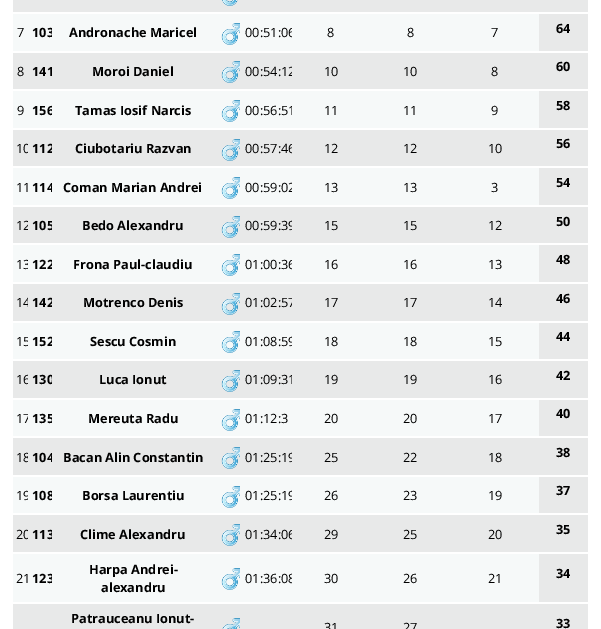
%!PS
<< /PageSize [601 629] >> setpagedevice
/q/gsave load def
/Q_/grestore load def
/C { dup -16 bitshift 255 div exch dup -8 bitshift 255 and 255 div exch 255 and 255 div setrgbcolor } def
/F { [ exch dup neg 0 0 3 -1 roll 0 0 ] selectfont } def
/T { moveto show } def
/R { rectfill } def
/I { 5 dict begin { /h /w /y /x /name } { exch def } forall
  gsave x y translate w h scale
  w h 8 [w 0 0 h 0 0] name (r) file false 3 colorimage grestore end } def
0 629 translate 1 -1 scale
4 setmiterlimit
16#FFFFFF C
0 0 601 629 R
16#E8E9E9 C
13 0 575 12 R
(1.rgb) 222 0 16 6 I
16#F6F9F9 C
13 14 526 37 R
/OpenSans-Regular 12.75 F
16#000000 C
(7) 17 37 T
q
30 14 22 37 rectclip
/OpenSans-Bold 12.75 F
(103) 32 37 T
Q_
/OpenSans-Bold 12.75 F
(Andronache Maricel) 69 37 T
(2.rgb) 221 23 19 22 I
q
242 14 50 37 rectclip
/OpenSans-Regular 12.75 F
(00:51:06) 245 37 T
Q_
/OpenSans-Regular 12.75 F
(8) 327 37 T
(8) 407 37 T
(7) 491 37 T
16#E8E9E9 C
539 14 49 37 R
/OpenSans-Bold 12.75 F
16#000000 C
(64) 556 33 T
16#E8E9E9 C
13 53 575 36 R
/OpenSans-Regular 12.75 F
16#000000 C
(8) 17 76 T
q
30 53 22 36 rectclip
/OpenSans-Bold 12.75 F
(141) 32 76 T
Q_
/OpenSans-Bold 12.75 F
(Moroi Daniel) 92 76 T
(3.rgb) 221 61 19 22 I
q
242 53 50 36 rectclip
/OpenSans-Regular 12.75 F
(00:54:12) 245 76 T
Q_
/OpenSans-Regular 12.75 F
(10) 324 76 T
(10) 403 76 T
(8) 491 76 T
/OpenSans-Bold 12.75 F
(60) 556 71 T
16#F6F9F9 C
13 91 526 37 R
/OpenSans-Regular 12.75 F
16#000000 C
(9) 17 115 T
q
30 91 22 37 rectclip
/OpenSans-Bold 12.75 F
(156) 32 115 T
Q_
/OpenSans-Bold 12.75 F
(Tamas Iosif Narcis) 75 115 T
(2.rgb) 221 100 19 22 I
q
242 91 50 37 rectclip
/OpenSans-Regular 12.75 F
(00:56:51) 245 115 T
Q_
/OpenSans-Regular 12.75 F
(11) 324 115 T
(11) 403 115 T
(9) 491 115 T
16#E8E9E9 C
539 91 49 37 R
/OpenSans-Bold 12.75 F
16#000000 C
(58) 556 110 T
16#E8E9E9 C
13 130 575 36 R
q
13 130 15 36 rectclip
/OpenSans-Regular 12.75 F
16#000000 C
(10) 16 153 T
Q_
q
30 130 22 36 rectclip
16#000000 C
(112) 32 153 T
Q_
16#000000 C
(Ciubotariu Razvan) 75 153 T
(3.rgb) 221 139 19 22 I
q
242 130 50 36 rectclip
/OpenSans-Regular 12.75 F
(00:57:46) 245 153 T
Q_
/OpenSans-Regular 12.75 F
(12) 324 153 T
(12) 403 153 T
(10) 488 153 T
/OpenSans-Bold 12.75 F
(56) 556 148 T
16#F6F9F9 C
13 168 526 37 R
/OpenSans-Regular 12.75 F
16#000000 C
(11) 16 192 T
q
30 168 22 37 rectclip
/OpenSans-Bold 12.75 F
(114) 32 192 T
Q_
/OpenSans-Bold 12.75 F
(Coman Marian Andrei) 63 192 T
(2.rgb) 221 177 19 22 I
q
242 168 50 37 rectclip
/OpenSans-Regular 12.75 F
(00:59:02) 245 192 T
Q_
/OpenSans-Regular 12.75 F
(13) 324 192 T
(13) 403 192 T
(3) 491 192 T
16#E8E9E9 C
539 168 49 37 R
/OpenSans-Bold 12.75 F
16#000000 C
(54) 556 187 T
16#E8E9E9 C
13 207 575 36 R
q
13 207 15 36 rectclip
/OpenSans-Regular 12.75 F
16#000000 C
(12) 16 230 T
Q_
q
30 207 22 36 rectclip
16#000000 C
(105) 32 230 T
Q_
16#000000 C
(Bedo Alexandru) 82 230 T
(3.rgb) 221 216 19 22 I
q
242 207 50 36 rectclip
/OpenSans-Regular 12.75 F
(00:59:39) 245 230 T
Q_
/OpenSans-Regular 12.75 F
(15) 324 230 T
(15) 403 230 T
(12) 488 230 T
/OpenSans-Bold 12.75 F
(50) 556 226 T
16#F6F9F9 C
13 245 526 37 R
q
13 245 15 37 rectclip
/OpenSans-Regular 12.75 F
16#000000 C
(13) 16 269 T
Q_
q
30 245 22 37 rectclip
16#000000 C
(122) 32 269 T
Q_
16#000000 C
(Frona Paul-claudiu) 73 269 T
(2.rgb) 221 254 19 22 I
q
242 245 50 37 rectclip
/OpenSans-Regular 12.75 F
(01:00:36) 245 269 T
Q_
/OpenSans-Regular 12.75 F
(16) 324 269 T
(16) 403 269 T
(13) 488 269 T
16#E8E9E9 C
539 245 49 37 R
/OpenSans-Bold 12.75 F
16#000000 C
(48) 556 264 T
16#E8E9E9 C
13 284 575 37 R
q
13 284 15 37 rectclip
/OpenSans-Regular 12.75 F
16#000000 C
(14) 16 307 T
Q_
q
30 284 22 37 rectclip
16#000000 C
(142) 32 307 T
Q_
16#000000 C
(Motrenco Denis) 83 307 T
(3.rgb) 221 293 19 22 I
q
242 284 50 37 rectclip
/OpenSans-Regular 12.75 F
(01:02:57) 245 307 T
Q_
/OpenSans-Regular 12.75 F
(17) 324 307 T
(17) 403 307 T
(14) 488 307 T
/OpenSans-Bold 12.75 F
(46) 556 303 T
16#F6F9F9 C
13 323 526 36 R
q
13 323 15 36 rectclip
/OpenSans-Regular 12.75 F
16#000000 C
(15) 16 346 T
Q_
q
30 323 22 36 rectclip
16#000000 C
(152) 32 346 T
Q_
16#000000 C
(Sescu Cosmin) 90 346 T
(2.rgb) 221 331 19 22 I
q
242 323 50 36 rectclip
/OpenSans-Regular 12.75 F
(01:08:59) 245 346 T
Q_
/OpenSans-Regular 12.75 F
(18) 324 346 T
(18) 403 346 T
(15) 488 346 T
16#E8E9E9 C
539 323 49 36 R
/OpenSans-Bold 12.75 F
16#000000 C
(44) 556 341 T
16#E8E9E9 C
13 361 575 37 R
q
13 361 15 37 rectclip
/OpenSans-Regular 12.75 F
16#000000 C
(16) 16 384 T
Q_
q
30 361 22 37 rectclip
16#000000 C
(130) 32 384 T
Q_
16#000000 C
(Luca Ionut) 99 384 T
(3.rgb) 221 370 19 22 I
q
242 361 50 37 rectclip
/OpenSans-Regular 12.75 F
(01:09:31) 245 384 T
Q_
/OpenSans-Regular 12.75 F
(19) 324 384 T
(19) 403 384 T
(16) 488 384 T
/OpenSans-Bold 12.75 F
(42) 556 380 T
16#F6F9F9 C
13 400 526 36 R
q
13 400 15 36 rectclip
/OpenSans-Regular 12.75 F
16#000000 C
(17) 16 423 T
Q_
q
30 400 22 36 rectclip
16#000000 C
(135) 32 423 T
Q_
16#000000 C
(Mereuta Radu) 88 423 T
(2.rgb) 221 409 19 22 I
/OpenSans-Regular 12.75 F
(01:12:3) 245 423 T
(20) 324 423 T
(20) 403 423 T
(17) 488 423 T
16#E8E9E9 C
539 400 49 36 R
/OpenSans-Bold 12.75 F
16#000000 C
(40) 556 418 T
16#E8E9E9 C
13 438 575 37 R
q
13 438 15 37 rectclip
/OpenSans-Regular 12.75 F
16#000000 C
(18) 16 462 T
Q_
q
30 438 22 37 rectclip
16#000000 C
(104) 32 462 T
Q_
16#000000 C
(Bacan Alin Constantin) 63 462 T
(3.rgb) 221 447 19 22 I
q
242 438 50 37 rectclip
/OpenSans-Regular 12.75 F
(01:25:19) 245 462 T
Q_
/OpenSans-Regular 12.75 F
(25) 324 462 T
(22) 403 462 T
(18) 488 462 T
/OpenSans-Bold 12.75 F
(38) 556 457 T
16#F6F9F9 C
13 477 526 36 R
q
13 477 15 36 rectclip
/OpenSans-Regular 12.75 F
16#000000 C
(19) 16 500 T
Q_
q
30 477 22 36 rectclip
16#000000 C
(108) 32 500 T
Q_
16#000000 C
(Borsa Laurentiu) 82 500 T
(2.rgb) 221 486 19 22 I
q
242 477 50 36 rectclip
/OpenSans-Regular 12.75 F
(01:25:19) 245 500 T
Q_
/OpenSans-Regular 12.75 F
(26) 324 500 T
(23) 403 500 T
(19) 488 500 T
16#E8E9E9 C
539 477 49 36 R
/OpenSans-Bold 12.75 F
16#000000 C
(37) 556 495 T
16#E8E9E9 C
13 515 575 37 R
q
13 515 15 37 rectclip
/OpenSans-Regular 12.75 F
16#000000 C
(20) 16 539 T
Q_
q
30 515 22 37 rectclip
16#000000 C
(113) 32 539 T
Q_
16#000000 C
(Clime Alexandru) 80 539 T
(3.rgb) 221 524 19 22 I
q
242 515 50 37 rectclip
/OpenSans-Regular 12.75 F
(01:34:06) 245 539 T
Q_
/OpenSans-Regular 12.75 F
(29) 324 539 T
(25) 403 539 T
(20) 488 539 T
/OpenSans-Bold 12.75 F
(35) 556 534 T
16#F6F9F9 C
13 554 526 48 R
/OpenSans-Regular 12.75 F
16#000000 C
(21) 16 583 T
q
30 554 22 48 rectclip
/OpenSans-Bold 12.75 F
(123) 32 583 T
Q_
/OpenSans-Bold 12.75 F
(Harpa Andrei-) 89 574 T
(alexandru) 101 592 T
(2.rgb) 221 568 19 22 I
q
242 554 50 48 rectclip
/OpenSans-Regular 12.75 F
(01:36:08) 245 583 T
Q_
/OpenSans-Regular 12.75 F
(30) 324 583 T
(26) 403 583 T
(21) 488 583 T
16#E8E9E9 C
539 554 49 48 R
/OpenSans-Bold 12.75 F
16#000000 C
(34) 556 578 T
16#E8E9E9 C
13 604 575 25 R
16#000000 C
(Patrauceanu Ionut-) 71 623 T
(4.rgb) 222 618 18 11 I
/OpenSans-Regular 12.75 F
(31) 324 632 T
(27) 403 632 T
/OpenSans-Bold 12.75 F
(33) 556 628 T
showpage
